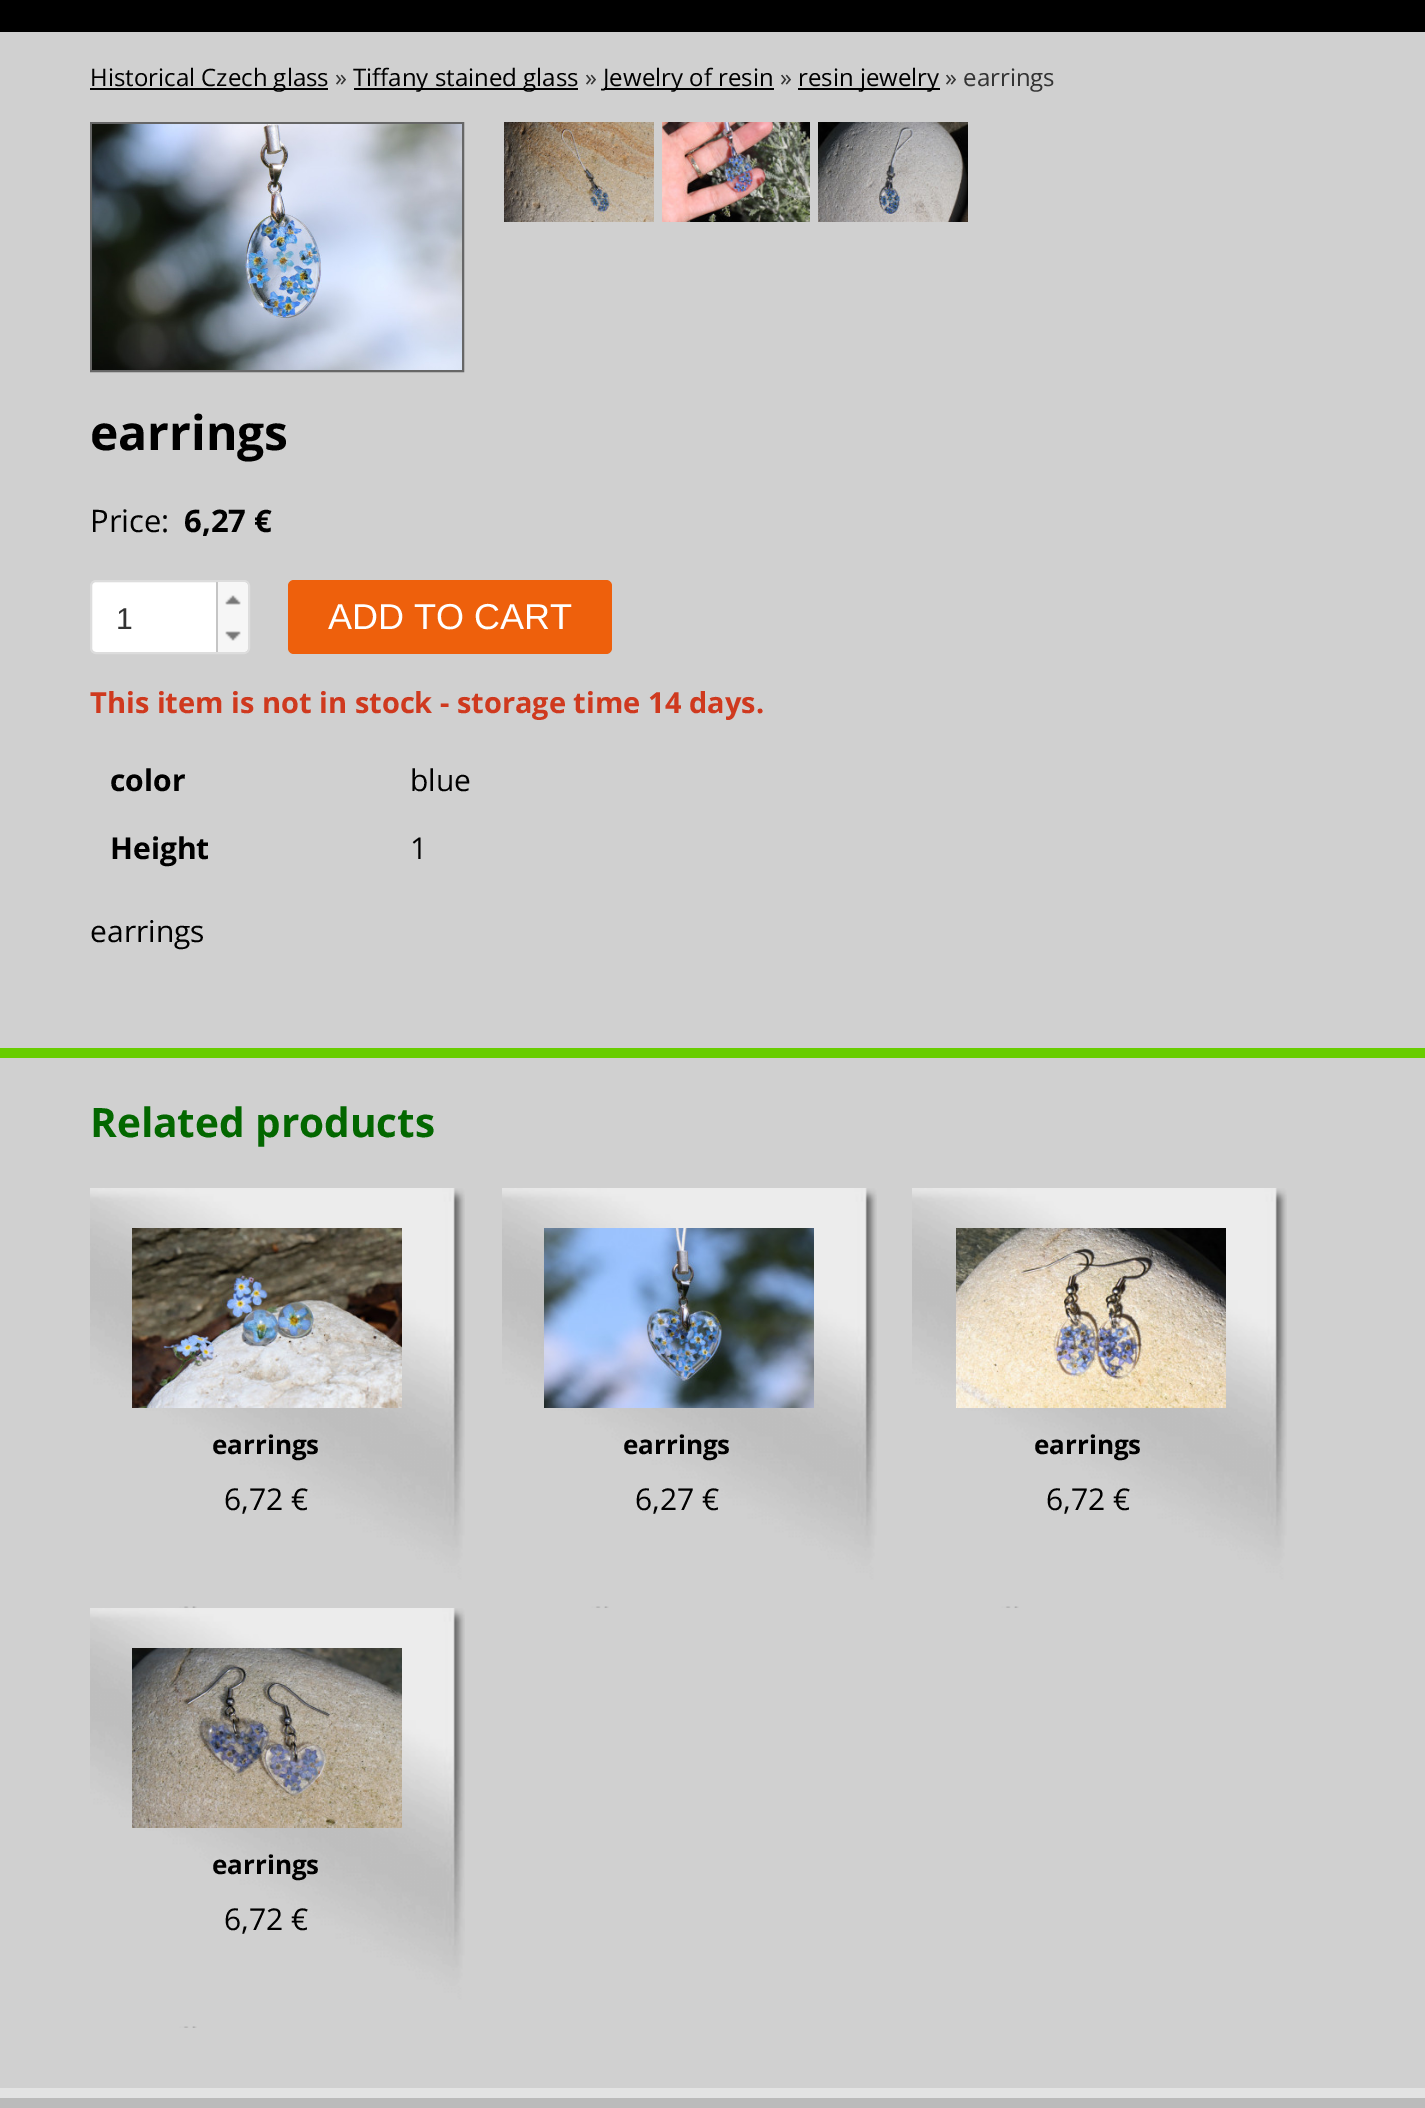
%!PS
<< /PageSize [1425 2108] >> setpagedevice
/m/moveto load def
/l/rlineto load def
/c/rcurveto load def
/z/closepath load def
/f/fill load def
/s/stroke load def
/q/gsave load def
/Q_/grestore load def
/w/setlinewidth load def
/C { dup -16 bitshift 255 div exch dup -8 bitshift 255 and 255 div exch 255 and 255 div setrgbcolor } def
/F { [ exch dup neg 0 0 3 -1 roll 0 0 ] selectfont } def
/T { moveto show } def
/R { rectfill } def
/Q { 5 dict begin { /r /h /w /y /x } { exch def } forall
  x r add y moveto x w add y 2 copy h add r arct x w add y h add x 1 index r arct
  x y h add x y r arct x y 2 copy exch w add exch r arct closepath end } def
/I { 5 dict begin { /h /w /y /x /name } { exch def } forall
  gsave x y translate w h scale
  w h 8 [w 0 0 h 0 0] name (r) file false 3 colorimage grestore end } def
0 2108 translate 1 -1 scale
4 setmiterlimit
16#D0D0D0 C
0 0 1425 2108 R
16#000000 C
0 0 1425 32 R
90 88 238 2 R
/OpenSans-Regular 24 F
(Historical Czech glass) 90 86 T
16#333333 C
(») 335 86 T
16#000000 C
354 88 224 2 R
(Tiffany stained glass) 353 86 T
16#333333 C
(») 585 86 T
16#000000 C
604 88 170 2 R
(Jewelry of resin) 603 86 T
16#333333 C
(») 780 86 T
16#000000 C
798 88 142 2 R
(resin jewelry) 798 86 T
16#333333 C
(» earrings) 945 86 T
16#666666 C
2 w
91 123 372 248 rectstroke
(1.rgb) 92 124 370 246 I
(2.rgb) 504 122 150 100 I
(3.rgb) 662 122 148 100 I
(4.rgb) 818 122 150 100 I
/OpenSans-Bold 48 F
16#000000 C
(earrings) 90 450 T
/OpenSans-Regular 31 F
(Price:) 90 532 T
/OpenSans-Bold 31 F
(6,27 €) 184 532 T
16#FFFFFF C
91 581 158 72 5 Q q f Q_
16#DDDDDD C
s
/LiberationSans-Regular 30 F
16#333333 C
(1) 116 629 T
16#F6F6F6 C
216 582 m 26 0 l 3.5 0 6 2.5 6 6 c 0 30 l -32 0 l z f
16#C5C5C5 C
216 582 2 36 R
(5.rgb) 225 595 16 10 I
16#F6F6F6 C
216 618 m 32 0 l 0 28 l 0 3.5 -2.5 6 -6 6 c -26 0 l z f
16#C5C5C5 C
216 618 2 34 R
(6.rgb) 225 631 16 10 I
16#EE600C C
288 580 324 74 6 Q f
/LiberationSans-Regular 36 F
16#FFFFFF C
(ADD TO CART) 328 629 T
/OpenSans-Bold 29 F
16#CF391E C
(This item is not in stock - storage time 14 days.) 90 713 T
/OpenSans-Bold 30 F
16#000000 C
(color) 110 791 T
/OpenSans-Regular 30 F
(blue) 410 791 T
/OpenSans-Bold 30 F
(Height) 110 859 T
/OpenSans-Regular 30 F
(1) 410 859 T
(earrings) 90 942 T
16#68CD00 C
0 1048 1425 10 R
/OpenSans-Bold 40.5 F
16#036700 C
(Related products) 90 1137 T
(7.rgb) 90 1188 375 420 I
(8.rgb) 132 1228 270 180 I
/OpenSans-Bold 26 F
16#000000 C
(earrings) 212 1454 T
/OpenSans-Regular 30 F
(6,72 €) 224 1510 T
(7.rgb) 502 1188 375 420 I
(9.rgb) 544 1228 270 180 I
/OpenSans-Bold 26 F
(earrings) 623 1454 T
/OpenSans-Regular 30 F
(6,27 €) 635 1510 T
(7.rgb) 912 1188 375 420 I
(10.rgb) 956 1228 270 180 I
/OpenSans-Bold 26 F
(earrings) 1034 1454 T
/OpenSans-Regular 30 F
(6,72 €) 1046 1510 T
(7.rgb) 90 1608 375 420 I
(11.rgb) 132 1648 270 180 I
/OpenSans-Bold 26 F
(earrings) 212 1874 T
/OpenSans-Regular 30 F
(6,72 €) 224 1930 T
16#BBBBBB C
0 2098 1425 10 R
16#E3E3E3 C
0 2088 1425 10 R
showpage
